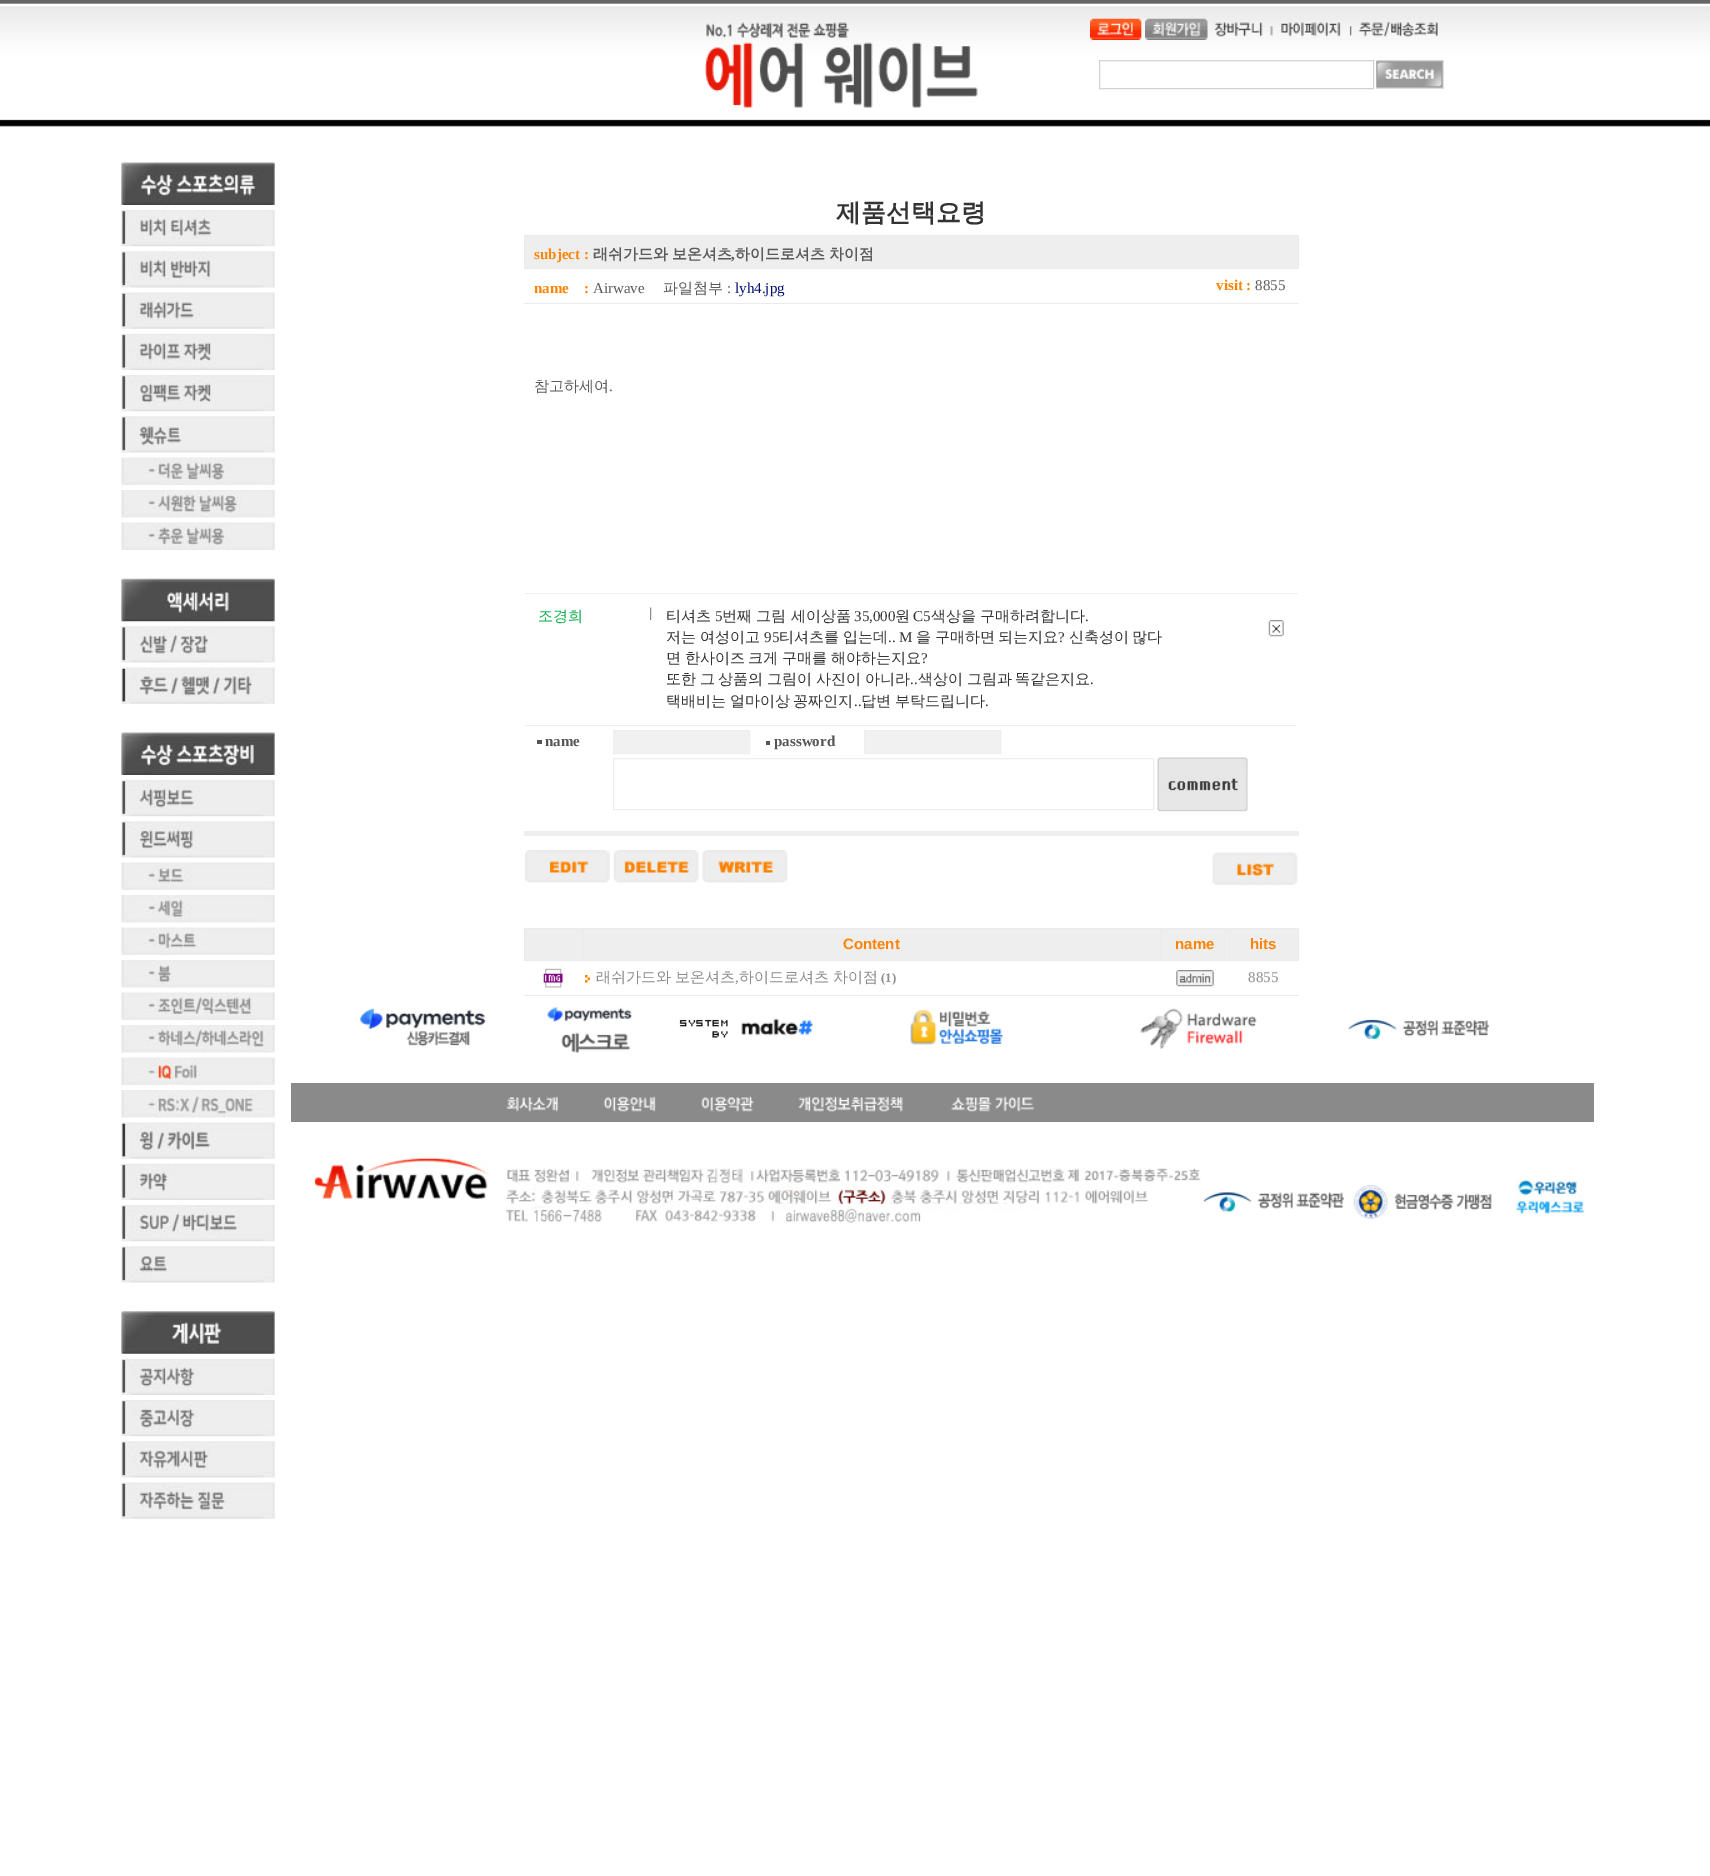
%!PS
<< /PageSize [1710 1876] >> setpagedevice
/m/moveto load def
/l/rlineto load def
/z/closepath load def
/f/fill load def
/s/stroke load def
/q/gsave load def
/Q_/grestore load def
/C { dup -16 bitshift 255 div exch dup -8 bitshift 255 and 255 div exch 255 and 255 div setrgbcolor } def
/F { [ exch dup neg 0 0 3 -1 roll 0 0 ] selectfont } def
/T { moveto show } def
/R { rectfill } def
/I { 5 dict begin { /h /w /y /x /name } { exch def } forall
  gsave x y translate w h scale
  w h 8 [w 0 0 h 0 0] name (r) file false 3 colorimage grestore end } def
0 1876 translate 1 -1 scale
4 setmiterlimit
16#FFFFFF C
0 0 1710 1876 R
(1.rgb) 0 0 1710 127 I
(2.rgb) 1 125 1708 1 I
(3.rgb) 705 22 273 86 I
(4.rgb) 1090 18 55 22 I
(5.rgb) 1145 18 63 22 I
(6.rgb) 1214 22 59 15 I
(7.rgb) 1281 22 71 15 I
(8.rgb) 1358 21 80 16 I
16#D2D2D2 C
1099.5 60.5 274 28 rectstroke
(9.rgb) 1376 60 68 29 I
(10.rgb) 121 162 154 43 I
(11.rgb) 121 210 154 37 I
(12.rgb) 121 251 154 37 I
(13.rgb) 121 292 154 37 I
(14.rgb) 121 333 154 37 I
(15.rgb) 121 375 154 37 I
(16.rgb) 121 416 154 37 I
(17.rgb) 121 457 154 28 I
(18.rgb) 121 490 154 28 I
(19.rgb) 121 522 154 28 I
(20.rgb) 121 578 154 44 I
(21.rgb) 121 626 154 37 I
(22.rgb) 121 667 154 37 I
(23.rgb) 121 732 154 43 I
(24.rgb) 121 780 154 37 I
(25.rgb) 121 821 154 37 I
(26.rgb) 121 862 154 28 I
(27.rgb) 121 895 154 28 I
(28.rgb) 121 927 154 28 I
(29.rgb) 121 960 154 28 I
(30.rgb) 121 992 154 28 I
(31.rgb) 121 1025 154 28 I
(32.rgb) 121 1057 154 28 I
(33.rgb) 121 1090 154 28 I
(34.rgb) 121 1122 154 37 I
(35.rgb) 121 1163 154 37 I
(36.rgb) 121 1205 154 37 I
(37.rgb) 121 1246 154 37 I
(38.rgb) 121 1311 154 43 I
(39.rgb) 121 1358 154 37 I
(40.rgb) 121 1400 154 37 I
(41.rgb) 121 1441 154 37 I
(42.rgb) 121 1482 154 37 I
/WenQuanYiZenHei-Bold 25 F
16#333333 C
(제품선택요령) 836 221 T
16#EEEEEE C
524 831 775 5 R
525 236 773 32 R
16#EBEBEB C
524 235 775 1 R
1298 235 1 34 R
524 268 775 1 R
524 235 1 34 R
/LiberationSerif-Bold 15 F
16#FB8404 C
(subject :) 534 259 T
/WenQuanYiZenHei-Bold 15 F
16#5B5B5B C
593 259 m -.75 0 32 (래쉬가드와 보온셔츠) widthshow
/LiberationSerif-Bold 15 F
(,) 731 259 T
/WenQuanYiZenHei-Bold 15 F
735 259 m -.75 0 32 (하이드로셔츠 차이점) widthshow
/LiberationSerif-Bold 15 F
16#FB8404 C
(name    :) 534 293 T
/LiberationSerif-Regular 15 F
16#5B5B5B C
(Airwave) 593 293 T
/WenQuanYiZenHei-Medium 15 F
(파일첨부) 663 293 T
/LiberationSerif-Regular 15 F
(:) 727 293 T
16#040F6F C
(lyh4.jpg) 735 293 T
16#EBEBEB C
524 303 775 1 R
/LiberationSerif-Bold 15 F
16#FB8404 C
(visit :) 1216 290 T
/LiberationSerif-Regular 15 F
16#5B5B5B C
(8855) 1255 290 T
/WenQuanYiZenHei-Medium 15 F
(참고하세여) 534 391 T
/LiberationSerif-Regular 15 F
(.) 609 391 T
16#EEEEEE C
525 593 773 1 R
(43.rgb) 1268 620 16 17 I
/WenQuanYiZenHei-Medium 15 F
16#15AF4F C
(조경희) 538 621 T
(44.rgb) 650 607 2 13 I
16#333333 C
(티셔츠) 666 621 T
/LiberationSerif-Regular 15 F
(5) 715 621 T
/WenQuanYiZenHei-Medium 15 F
(번째 그림 세이상품) 722 621 T
/LiberationSerif-Regular 15 F
(35,000) 854 621 T
/WenQuanYiZenHei-Medium 15 F
(원) 895 621 T
/LiberationSerif-Regular 15 F
(C5) 913 621 T
/WenQuanYiZenHei-Medium 15 F
(색상을 구매하려합니다) 931 621 T
/LiberationSerif-Regular 15 F
(.) 1085 621 T
/WenQuanYiZenHei-Medium 15 F
(저는) 666 642 T
(여성이고) 700 642 T
/LiberationSerif-Regular 15 F
(95) 764 642 T
/WenQuanYiZenHei-Medium 15 F
(티셔츠를) 779 642 T
(입는데) 843 642 T
/LiberationSerif-Regular 15 F
(.. M) 888 642 T
/WenQuanYiZenHei-Medium 15 F
(을) 916 642 T
(구매하면) 935 642 T
(되는지요) 998 642 T
/LiberationSerif-Regular 15 F
(?) 1058 642 T
/WenQuanYiZenHei-Medium 15 F
(신축성이) 1069 642 T
(많다) 1132 642 T
666 663 m -.75 0 32 (면 한사이즈 크게 구매를 해야하는지요) widthshow
/LiberationSerif-Regular 15 F
(?) 921 663 T
/WenQuanYiZenHei-Medium 15 F
666 684 m -.75 0 32 (또한 그 상품의 그림이 사진이 아니라) widthshow
/LiberationSerif-Regular 15 F
(..) 910 684 T
/WenQuanYiZenHei-Medium 15 F
918 684 m -.75 0 32 (색상이 그림과 똑같은지요) widthshow
/LiberationSerif-Regular 15 F
(.) 1090 684 T
/WenQuanYiZenHei-Medium 15 F
666 706 m -.75 0 32 (택배비는 얼마이상 꽁짜인지) widthshow
/LiberationSerif-Regular 15 F
(..) 854 706 T
/WenQuanYiZenHei-Medium 15 F
861 706 m -.75 0 32 (답변 부탁드립니다) widthshow
/LiberationSerif-Regular 15 F
(.) 985 706 T
16#EEEEEE C
525 725 771 1 R
16#555555 C
537 740 5 4 R
/LiberationSerif-Bold 15 F
(name) 545 746 T
16#F1F1F1 C
613.5 730.5 m 136 0 l 0 23 l -136 0 l z q f Q_
16#EEEEEE C
s
16#555555 C
766 741 4 4 R
(password) 774 746 T
16#F1F1F1 C
864.5 730.5 m 136 0 l 0 23 l -136 0 l z q f Q_
16#EEEEEE C
s
613.5 758.5 540 51 rectstroke
(45.rgb) 1157 757 91 55 I
(46.rgb) 525 850 85 33 I
(47.rgb) 613 850 86 33 I
(48.rgb) 702 850 86 33 I
(49.rgb) 1212 852 86 33 I
16#EBEBEB C
524 995 775 1 R
16#EEEEEE C
525 929 58 31 R
16#EBEBEB C
1229 928 70 1 R
1298 928 1 33 R
1229 960 70 1 R
1229 928 1 33 R
1160 928 70 1 R
1160 960 70 1 R
1160 928 1 33 R
583 928 578 1 R
583 960 578 1 R
583 928 1 33 R
524 928 60 1 R
524 960 60 1 R
524 928 1 33 R
16#EEEEEE C
584 929 576 31 R
/LiberationSans-Bold 15 F
16#FB8404 C
(Content) 843 949 T
16#EEEEEE C
1161 929 68 31 R
16#FB8404 C
(name) 1175 949 T
16#EEEEEE C
1230 929 68 31 R
16#FB8404 C
(hits) 1250 949 T
(50.rgb) 543 968 20 20 I
(51.rgb) 585 975 5 8 I
/WenQuanYiZenHei-Medium 15 F
16#8C8C8C C
596 982 m -.75 0 32 (래쉬가드와 보온셔츠) widthshow
/LiberationSerif-Regular 15 F
(,) 735 982 T
/WenQuanYiZenHei-Medium 15 F
739 982 m -.75 0 32 (하이드로셔츠 차이점) widthshow
/LiberationSerif-Bold 13 F
(\(1\)) 881 982 T
(52.rgb) 1176 970 38 17 I
/LiberationSerif-Regular 15 F
(8855) 1248 982 T
(53.rgb) 359 1008 127 39 I
(54.rgb) 547 1007 85 46 I
(55.rgb) 679 1018 134 20 I
(56.rgb) 910 1009 93 36 I
(57.rgb) 1140 1008 117 41 I
(58.rgb) 1348 1019 141 20 I
16#8A8A8A C
291 1083 1303 39 R
(59.rgb) 314 1158 176 41 I
(60.rgb) 506 1096 52 16 I
(61.rgb) 603 1096 53 16 I
(62.rgb) 701 1096 53 16 I
(63.rgb) 798 1096 105 16 I
(64.rgb) 951 1096 83 16 I
(65.rgb) 506 1168 695 55 I
(66.rgb) 1203 1192 141 20 I
(67.rgb) 1353 1185 139 34 I
(68.rgb) 1516 1179 69 37 I
showpage
